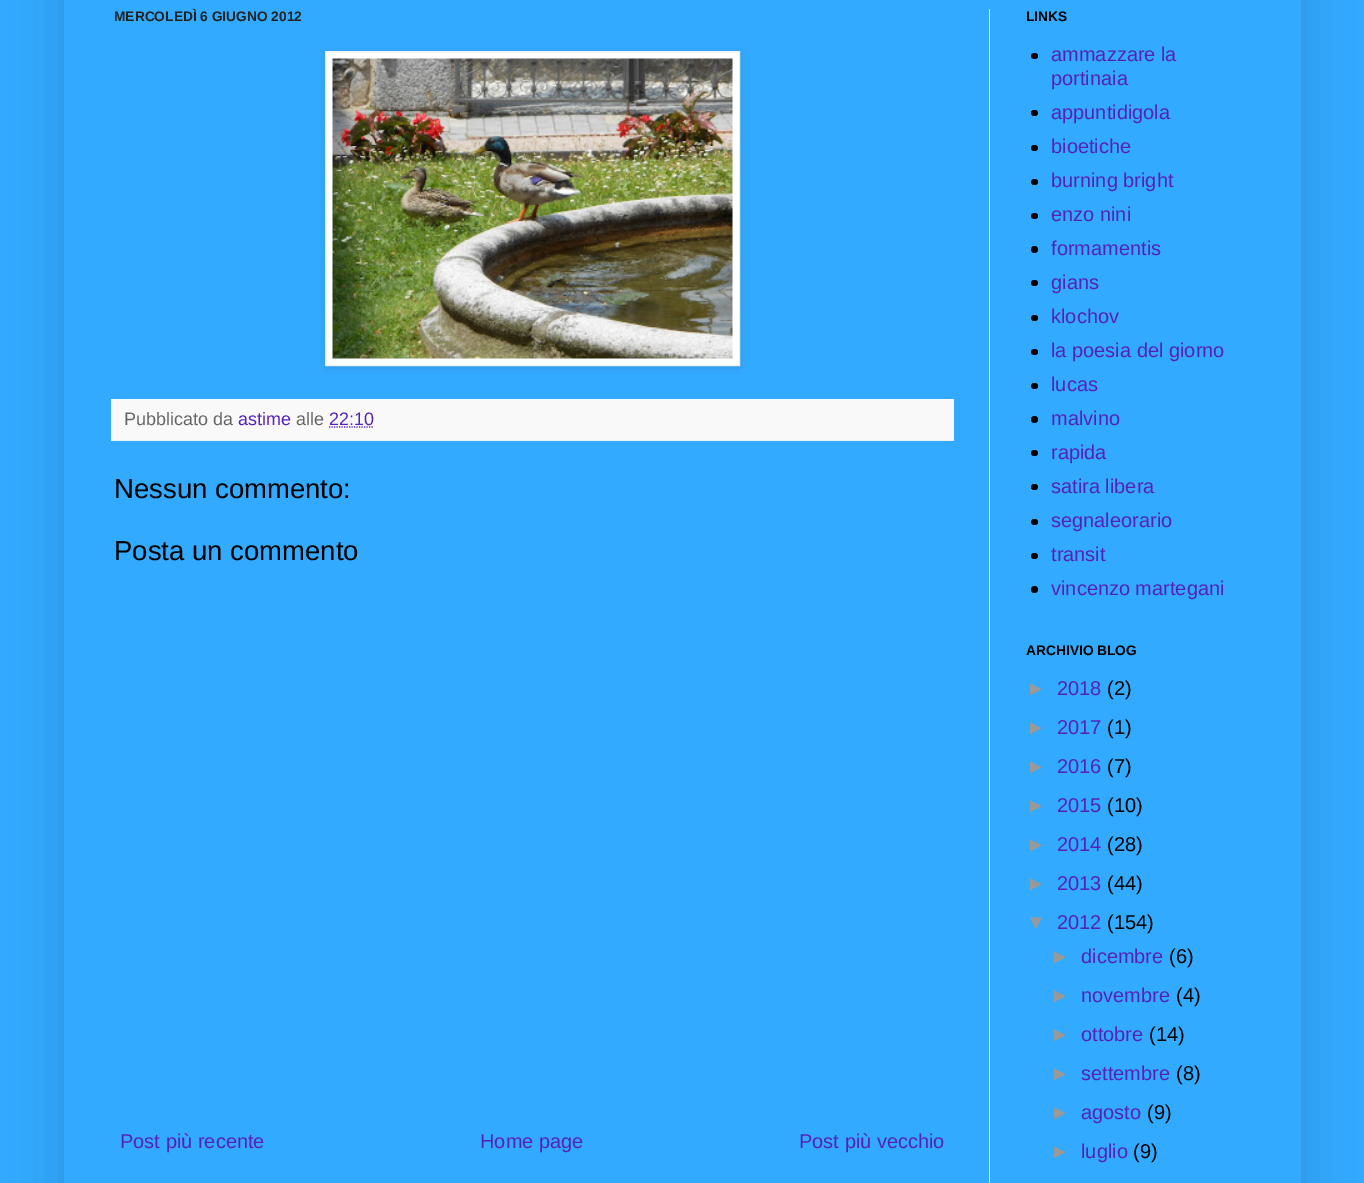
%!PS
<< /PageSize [1364 1183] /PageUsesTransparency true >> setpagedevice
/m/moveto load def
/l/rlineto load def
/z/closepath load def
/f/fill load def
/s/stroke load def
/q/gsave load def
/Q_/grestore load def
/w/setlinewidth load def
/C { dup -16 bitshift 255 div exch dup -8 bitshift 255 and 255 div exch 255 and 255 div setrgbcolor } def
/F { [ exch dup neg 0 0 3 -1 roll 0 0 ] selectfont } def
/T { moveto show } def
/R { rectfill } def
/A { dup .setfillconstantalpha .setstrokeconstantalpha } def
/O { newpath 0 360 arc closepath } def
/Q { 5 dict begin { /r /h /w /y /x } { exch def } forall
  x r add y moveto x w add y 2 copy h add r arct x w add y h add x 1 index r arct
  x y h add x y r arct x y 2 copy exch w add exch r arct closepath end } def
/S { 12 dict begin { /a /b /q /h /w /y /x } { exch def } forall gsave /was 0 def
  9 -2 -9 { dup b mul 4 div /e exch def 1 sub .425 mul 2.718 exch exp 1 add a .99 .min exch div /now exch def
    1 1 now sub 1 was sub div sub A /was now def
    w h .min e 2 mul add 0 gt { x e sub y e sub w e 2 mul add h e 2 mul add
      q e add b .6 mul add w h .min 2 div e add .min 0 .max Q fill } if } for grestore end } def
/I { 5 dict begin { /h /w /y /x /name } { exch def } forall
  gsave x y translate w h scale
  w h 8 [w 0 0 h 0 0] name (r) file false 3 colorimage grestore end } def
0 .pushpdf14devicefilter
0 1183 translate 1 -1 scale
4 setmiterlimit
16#32AAFF C
0 0 1364 1183 R
q
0 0 m 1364 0 l 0 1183 l -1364 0 l z 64 -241 m 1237 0 l 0 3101 l -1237 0 l z eoclip newpath
16#000000 C
64 -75 1237 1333 0 25 .15 S
Q_
/LiberationSans-Bold 13.75 F
16#222222 C
(MERCOLEDÌ 6 GIUGNO 2012) 114 21 T
16#000000 C
326 53 415 315 0 3 .1 S
16#FFFFFF C
325.5 51.5 m 414 0 l 0 314 l -414 0 l z q f Q_
16#EEEEEE C
s
(1.rgb) 332 58 401 301 I
16#F9F9F9 C
111 399 843 41 R
16#EEEEEE C
111 440 843 1 R
/LiberationSans-Regular 18 F
16#666666 C
(Pubblicato da) 124 425 T
16#5521BB C
(astime) 238 425 T
16#666666 C
(alle) 296 425 T
16#5521BB C
(22:10) 329 425 T
1.2 w
[1.25 1.25] 0 setdash
329 427 m 45 0 l s
/LiberationSans-Regular 27.5 F
16#000000 C
(Nessun commento:) 114 498 T
(Posta un commento) 114 560 T
/LiberationSans-Regular 20 F
16#5521BB C
(Post più recente) 120 1148 T
(Home page) 480 1148 T
(Post più vecchio) 799 1148 T
/LiberationSans-Bold 13.75 F
16#000000 C
(LINKS) 1026 21 T
1031 53 7 6 3 Q f
/LiberationSans-Regular 20 F
16#5521BB C
(ammazzare la) 1051 61 T
(portinaia) 1051 85 T
16#000000 C
1031 110 7 6 3 Q f
16#5521BB C
(appuntidigola) 1051 119 T
16#000000 C
1031 145 7 6 3 Q f
16#5521BB C
(bioetiche) 1051 153 T
16#000000 C
1031 179 7 6 3 Q f
16#5521BB C
(burning bright) 1051 187 T
16#000000 C
1031 213 7 6 3 Q f
16#5521BB C
(enzo nini) 1051 221 T
16#000000 C
1034.5 249.5 3.5 O f
16#5521BB C
(formamentis) 1051 255 T
16#000000 C
1031 280 7 6 3 Q f
16#5521BB C
(gians) 1051 289 T
16#000000 C
1031 315 7 6 3 Q f
16#5521BB C
(klochov) 1051 323 T
16#000000 C
1031 349 7 6 3 Q f
16#5521BB C
(la poesia del giorno) 1051 357 T
16#000000 C
1031 383 7 6 3 Q f
16#5521BB C
(lucas) 1051 391 T
16#000000 C
1034.5 419.5 3.5 O f
16#5521BB C
(malvino) 1051 425 T
16#000000 C
1031 450 7 6 3 Q f
16#5521BB C
(rapida) 1051 459 T
16#000000 C
1031 484 7 6 3 Q f
16#5521BB C
(satira libera) 1051 493 T
16#000000 C
1031 519 7 6 3 Q f
16#5521BB C
(segnaleorario) 1051 527 T
16#000000 C
1031 553 7 6 3 Q f
16#5521BB C
(transit) 1051 561 T
16#000000 C
1034.5 589.5 3.5 O f
16#5521BB C
(vincenzo martegani) 1051 595 T
/LiberationSans-Bold 13.75 F
16#000000 C
(ARCHIVIO BLOG) 1026 655 T
/LiberationSans-Regular 20 F
16#999999 C
(►) 1026 695 T
16#5521BB C
(2018) 1057 695 T
16#000000 C
(\(2\)) 1107 695 T
16#999999 C
(►) 1026 734 T
16#5521BB C
(2017) 1057 734 T
16#000000 C
(\(1\)) 1107 734 T
16#999999 C
(►) 1026 773 T
16#5521BB C
(2016) 1057 773 T
16#000000 C
(\(7\)) 1107 773 T
16#999999 C
(►) 1026 812 T
16#5521BB C
(2015) 1057 812 T
16#000000 C
(\(10\)) 1107 812 T
16#999999 C
(►) 1026 851 T
16#5521BB C
(2014) 1057 851 T
16#000000 C
(\(28\)) 1107 851 T
16#999999 C
(►) 1026 890 T
16#5521BB C
(2013) 1057 890 T
16#000000 C
(\(44\)) 1107 890 T
16#999999 C
(▼) 1026 929 T
16#5521BB C
(2012) 1057 929 T
16#000000 C
(\(154\)) 1107 929 T
16#999999 C
(►) 1050 963 T
16#5521BB C
(dicembre) 1081 963 T
16#000000 C
(\(6\)) 1169 963 T
16#999999 C
(►) 1050 1002 T
16#5521BB C
(novembre) 1081 1002 T
16#000000 C
(\(4\)) 1176 1002 T
16#999999 C
(►) 1050 1041 T
16#5521BB C
(ottobre) 1081 1041 T
16#000000 C
(\(14\)) 1149 1041 T
16#999999 C
(►) 1050 1080 T
16#5521BB C
(settembre) 1081 1080 T
16#000000 C
(\(8\)) 1176 1080 T
16#999999 C
(►) 1050 1119 T
16#5521BB C
(agosto) 1081 1119 T
16#000000 C
(\(9\)) 1147 1119 T
16#999999 C
(►) 1050 1158 T
16#5521BB C
(luglio) 1081 1158 T
16#000000 C
(\(9\)) 1133 1158 T
16#EEEEEE C
989 9 1 1174 R
.poppdf14devicefilter showpage
